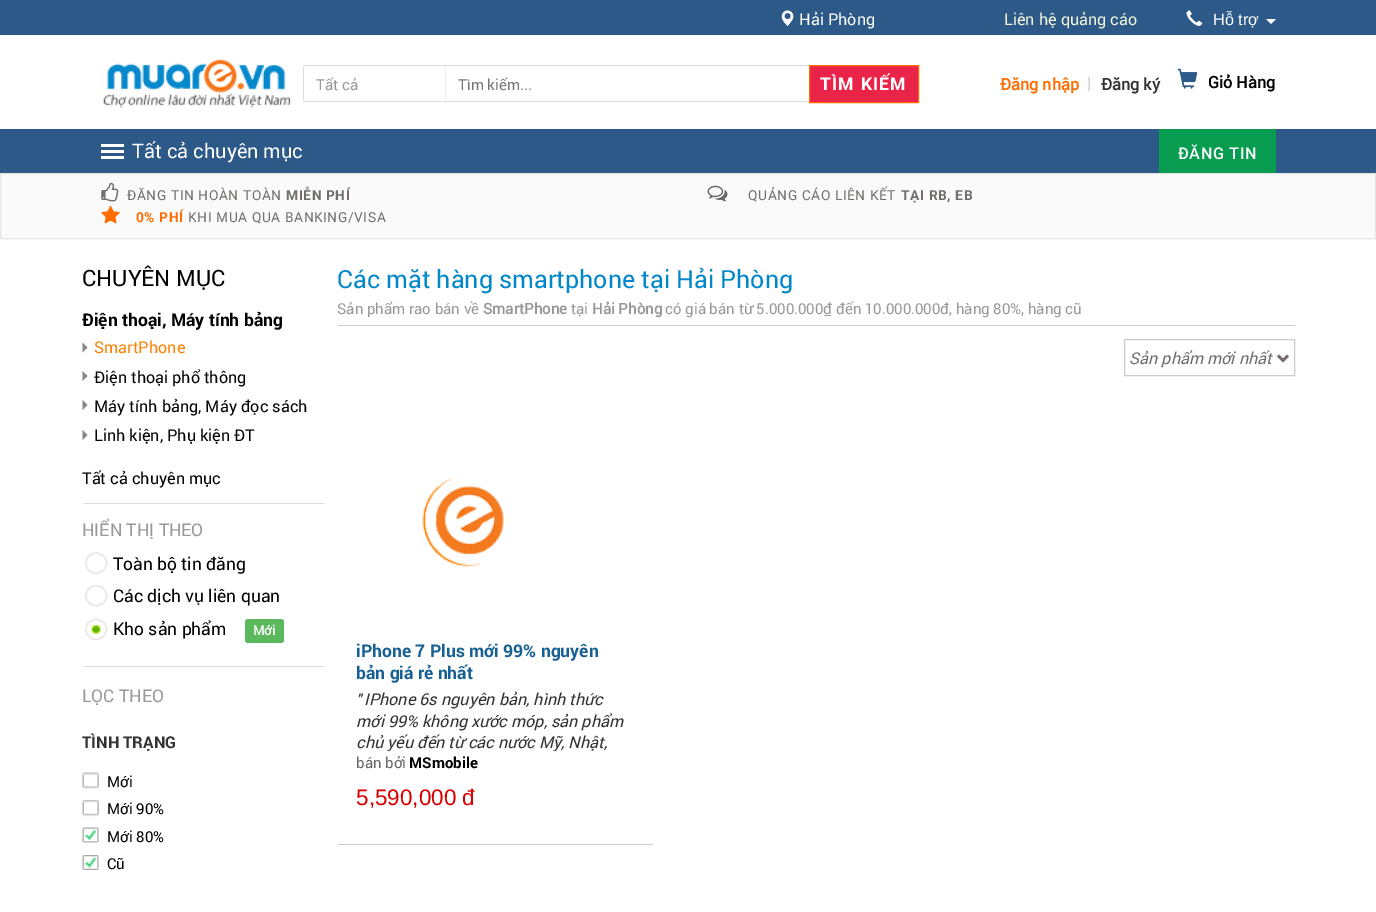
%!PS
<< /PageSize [1376 912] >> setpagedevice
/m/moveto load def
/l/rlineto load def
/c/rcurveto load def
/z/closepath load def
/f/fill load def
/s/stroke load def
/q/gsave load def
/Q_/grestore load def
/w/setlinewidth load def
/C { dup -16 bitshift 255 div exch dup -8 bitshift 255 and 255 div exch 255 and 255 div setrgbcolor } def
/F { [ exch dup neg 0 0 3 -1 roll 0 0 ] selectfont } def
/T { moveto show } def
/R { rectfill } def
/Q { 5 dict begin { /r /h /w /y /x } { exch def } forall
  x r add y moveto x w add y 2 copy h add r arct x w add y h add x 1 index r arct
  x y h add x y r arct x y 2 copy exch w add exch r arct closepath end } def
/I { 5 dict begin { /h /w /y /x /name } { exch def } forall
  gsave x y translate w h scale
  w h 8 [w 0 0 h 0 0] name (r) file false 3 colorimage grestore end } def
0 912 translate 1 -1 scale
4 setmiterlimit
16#FFFFFF C
0 0 1376 912 R
16#2C5987 C
0 0 1376 35 R
(1.rgb) 781 10 13 17 I
/Roboto-Regular 16.25 F
16#FFFFFF C
(Hải Phòng) 799 25 T
16#F5F5DC C
(Liên hệ quảng cáo) 1004 25 T
(2.rgb) 1186 10 17 16 I
/LiberationSans-Regular 16.25 F
16#FFFFFF C
(Hỗ trợ) 1213 25 T
1266 19 m 10 0 l -5 5 l z f
(3.rgb) 103 59 188 49 I
16#DDDDDD C
304 65 505 1 R
304 101 505 1 R
303 66 1 35 R
16#EBEBEB C
445 66 1 34 R
/Roboto-Regular 15 F
16#999999 C
(Tất cả) 316 90 T
16#757575 C
(Tìm kiếm...) 458 90 T
16#EA2349 C
809.5 65.5 m 108.5 0 l .5 0 .5 0 .5 .5 c 0 36 l 0 .5 0 .5 -.5 .5 c -108.5 0 l z q f Q_
16#FF6C00 C
s
/Roboto-Bold 17.5 F
16#FFFFFF C
820 90 m 1.25 0 (TÌM KIẾM) ashow
/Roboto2-Bold 16.25 F
16#FF6C00 C
(Đăng nhập) 1000 90 T
/Roboto2-Regular 17.5 F
16#CCCCCC C
(|) 1087 89 T
/Roboto2-Bold 16.25 F
16#333333 C
(Đăng ký) 1101 90 T
(4.rgb) 1177 68 21 21 I
16#000000 C
(Giỏ Hàng) 1208 88 T
16#2C5987 C
0 129 1376 44 R
16#FFFFFF C
101 144 23 3 R
101 150 23 3 R
101 156 23 3 R
/Roboto-Regular 20 F
(Tất cả chuyên mục) 132 158 T
16#079C50 C
1159 129 117 44 R
/Roboto-Medium 16.25 F
16#FFFFFF C
1178 159 m .6 0 (ĐĂNG TIN) ashow
16#FAFAFA C
.5 173.5 m 1375 0 l 0 65 l -1375 0 l z q f Q_
16#E5E5E5 C
s
(5.rgb) 101 182 18 20 I
/Roboto2-Regular 13.75 F
16#716E6D C
127 200 m .6 0 (ĐĂNG TIN HOÀN TOÀN) ashow
/Roboto-Bold 13.75 F
286 200 m .6 0 (MIỄN PHÍ) ashow
(6.rgb) 707 185 21 17 I
/Roboto2-Regular 13.75 F
748 200 m .6 0 (QUẢNG CÁO LIÊN KẾT) ashow
/Roboto-Bold 13.75 F
901 200 m .6 0 (TẠI RB, EB) ashow
(7.rgb) 101 205 19 19 I
16#FF6C00 C
136 222 m .6 0 (0% PHÍ) ashow
/Roboto2-Regular 13.75 F
16#716E6D C
188 222 m .6 0 (KHI MUA QUA BANKING/VISA) ashow
/Roboto-Regular 22.5 F
16#000000 C
(CHUYÊN MỤC) 82 286 T
16#DDDDDD C
83 503 242 1 R
/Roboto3-Bold 17.5 F
16#000000 C
(Điện thoại, Máy tính bảng) 82 326 T
16#888888 C
82.5 352.5 m 0 -10 l 5 5 l z 82.5 381 m 0 -10 l 5 5 l z f
/Roboto-Regular 16.25 F
16#FF8000 C
(SmartPhone) 94 353 T
16#000000 C
(Điện thoại phổ thông) 94 383 T
16#888888 C
82.5 410 m 0 -10 l 5 5 l z 82.5 440 m 0 -10 l 5 5 l z f
16#000000 C
(Máy tính bảng, Máy đọc sách) 94 412 T
(Linh kiện, Phụ kiện ĐT) 94 441 T
(Tất cả chuyên mục) 82 484 T
/Roboto-Regular 17.5 F
16#999999 C
(HIỂN THỊ THEO) 82 536 T
(8.rgb) 85 552 23 22 I
16#000000 C
(Toàn bộ tin đăng) 113 570 T
(9.rgb) 85 585 23 22 I
(Các dịch vụ liên quan) 113 602 T
(10.rgb) 85 618 23 23 I
(Kho sản phẩm) 113 635 T
16#5CB85C C
245 619 39 24 3 Q f
/Roboto2-Bold 13 F
16#FFFFFF C
(Mới) 253 635 T
16#DDDDDD C
83 666 242 1 R
/Roboto-Regular 17.5 F
16#999999 C
(LỌC THEO) 82 702 T
/Roboto3-Bold 16.25 F
16#333333 C
(TÌNH TRẠNG) 82 748 T
(11.rgb) 82 772 17 17 I
/Roboto-Regular 15 F
16#000000 C
(Mới) 107 787 T
(12.rgb) 82 800 17 17 I
(Mới 90%) 107 814 T
(13.rgb) 82 827 17 16 I
(Mới 80%) 107 842 T
(14.rgb) 82 855 17 15 I
(Cũ) 107 869 T
/Roboto-Regular 25 F
16#0088CB C
(Các mặt hàng smartphone tại Hải Phòng) 337 288 T
16#CCCCCC C
338 325 957 1 R
/Roboto-Regular 15 F
16#999999 C
(Sản phẩm rao bán về) 337 314 T
/Roboto2-Bold 15 F
(SmartPhone) 483 314 T
/Roboto-Regular 15 F
(tại) 571 314 T
/Roboto2-Bold 15 F
(Hải Phòng) 592 314 T
/Roboto-Regular 15 F
(có giá bán từ 5.000.000₫ đến 10.000.000đ, hàng 80%, hàng cũ) 665 314 T
16#CCCCCC C
1124.5 339.5 170 36 rectstroke
16#736C6C C
2.5 w
1278 355.5 m 5 5 l 5 -5 l s
/Roboto-Italic 16.25 F
16#716E6D C
(Sản phẩm mới nhất) 1129 364 T
16#CCCCCC C
338 844 315 1 R
(15.rgb) 422 478 82 89 I
/Roboto3-Bold 17.5 F
16#176093 C
(iPhone 7 Plus mới 99% nguyên) 356 657 T
(bản giá rẻ nhất) 356 679 T
/Roboto-Italic 15 F
16#333333 C
(") 356 705 T
/Roboto-Italic 16.25 F
(IPhone 6s nguyên bản, hình thức) 364 705 T
(mới 99% không xước móp, sản phẩm) 356 727 T
q
356 689 272 62 rectclip
(chủ yếu đến từ các nước Mỹ, Nhật,) 356 748 T
Q_
/Roboto-Regular 15 F
16#666666 C
(bán bởi) 356 768 T
/Roboto3-Bold 15 F
16#000000 C
(MSmobile) 409 768 T
/LiberationSans-Regular 22.5 F
16#D80000 C
(5,590,000 đ) 356 805 T
showpage
